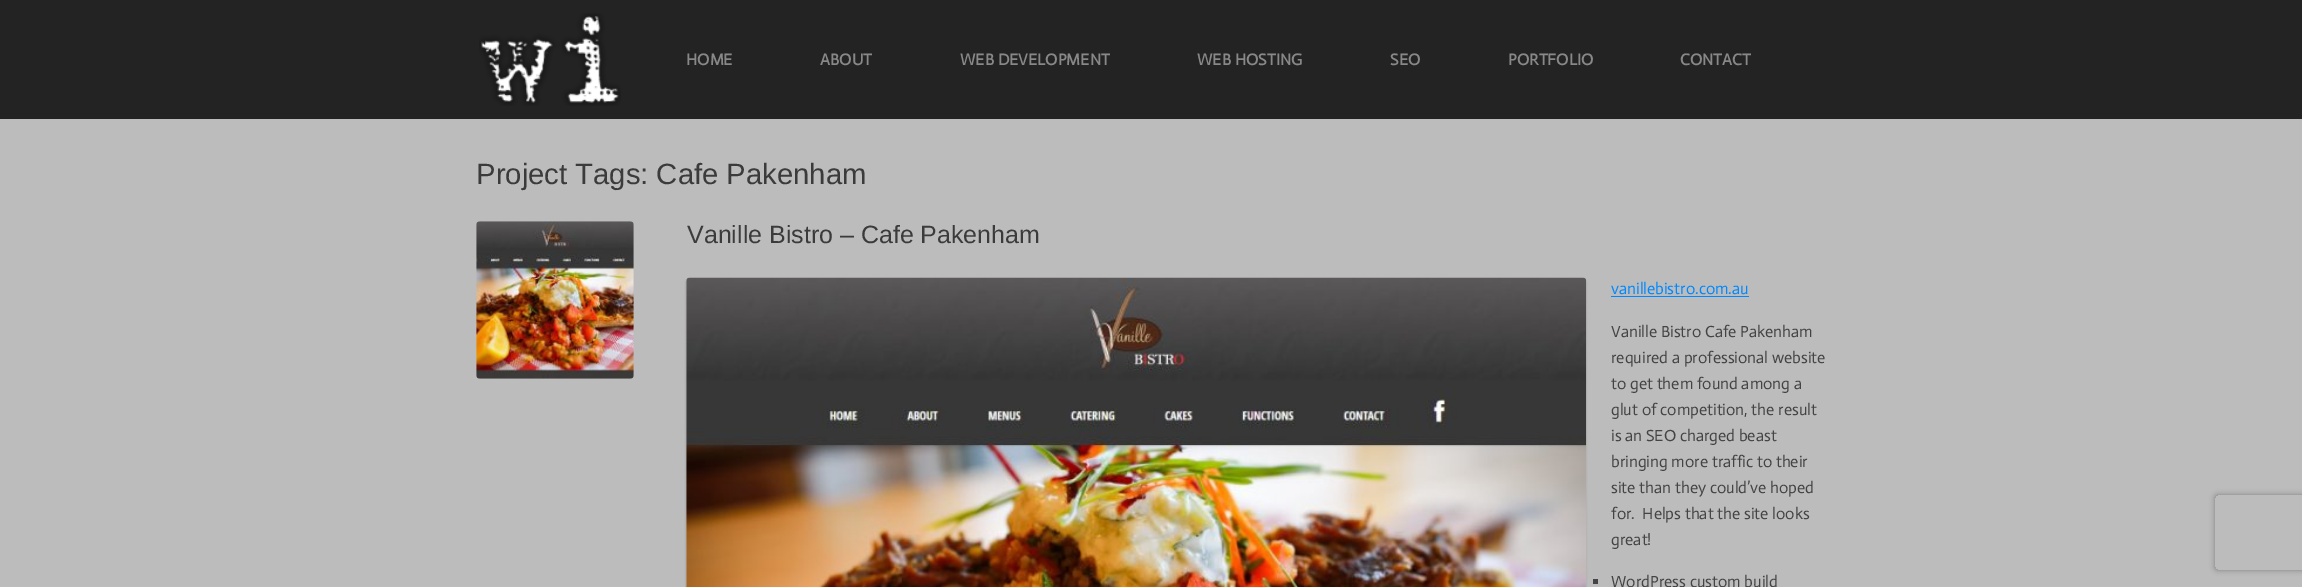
%!PS
<< /PageSize [2302 587] /PageUsesTransparency true >> setpagedevice
/m/moveto load def
/l/rlineto load def
/c/rcurveto load def
/z/closepath load def
/q/gsave load def
/Q_/grestore load def
/C { dup -16 bitshift 255 div exch dup -8 bitshift 255 and 255 div exch 255 and 255 div setrgbcolor } def
/F { [ exch dup neg 0 0 3 -1 roll 0 0 ] selectfont } def
/T { moveto show } def
/R { rectfill } def
/A { dup .setfillconstantalpha .setstrokeconstantalpha } def
/Q { 5 dict begin { /r /h /w /y /x } { exch def } forall
  x r add y moveto x w add y 2 copy h add r arct x w add y h add x 1 index r arct
  x y h add x y r arct x y 2 copy exch w add exch r arct closepath end } def
/S { 12 dict begin { /a /b /q /h /w /y /x } { exch def } forall gsave /was 0 def
  9 -2 -9 { dup b mul 4 div /e exch def 1 sub .425 mul 2.718 exch exp 1 add a .99 .min exch div /now exch def
    1 1 now sub 1 was sub div sub A /was now def
    w h .min e 2 mul add 0 gt { x e sub y e sub w e 2 mul add h e 2 mul add
      q e add b .6 mul add w h .min 2 div e add .min 0 .max Q fill } if } for grestore end } def
/I { 5 dict begin { /h /w /y /x /name } { exch def } forall
  gsave x y translate w h scale
  w h 8 [w 0 0 h 0 0] name (r) file false 3 colorimage grestore end } def
0 .pushpdf14devicefilter
0 587 translate 1 -1 scale
4 setmiterlimit
16#BCBCBC C
0 0 2302 587 R
16#232323 C
0 0 2302 119 R
(1.rgb) 479 13 142 93 I
/Actor-Bold 16.25 F
16#888888 C
(HOME) 686 65 T
(ABOUT) 820 65 T
(WEB DEVELOPMENT) 960 65 T
(WEB HOSTING) 1197 65 T
(SEO) 1390 65 T
(PORTFOLIO) 1508 65 T
(CONTACT) 1680 65 T
/LiberationSans-Regular 29.25 F
16#3B3B3B C
(Project Tags: Cafe Pakenham) 476 184 T
(2.rgb) 476 221 158 158 I
/LiberationSans-Regular 25 F
(Vanille Bistro – Cafe Pakenham) 687 243 T
16#000000 C
686 279 900 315 4 1 .18 S
(3.rgb) 686 277 901 310 I
/Actor-Regular 16.25 F
16#0088FF C
(vanillebistro.com.au) 1611 294 T
1611 296 138 1 R
16#444444 C
(Vanille Bistro Cafe Pakenham) 1611 337 T
(required a professional website) 1611 363 T
(to get them found among a) 1611 389 T
(glut of competition, the result) 1611 415 T
(is an SEO charged beast) 1611 441 T
(bringing more traffic to their) 1611 467 T
(site than they could’ve hoped) 1611 493 T
(for.  Helps that the site looks) 1611 519 T
(great!) 1611 545 T
1593 579 5 5 R
(WordPress custom build) 1611 587 T
q
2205 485 m 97 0 l 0 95 l -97 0 l z 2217.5 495 m 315 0 l 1.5 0 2.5 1 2.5 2.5 c 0 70 l 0 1.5 -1 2.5 -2.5 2.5 c -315 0 l -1.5 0 -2.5 -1 -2.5 -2.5 c 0 -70 l 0 -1.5 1 -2.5 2.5 -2.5 c z eoclip newpath
16#808080 C
2215 495 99 75 2.5 3 1 S
Q_
.poppdf14devicefilter showpage
